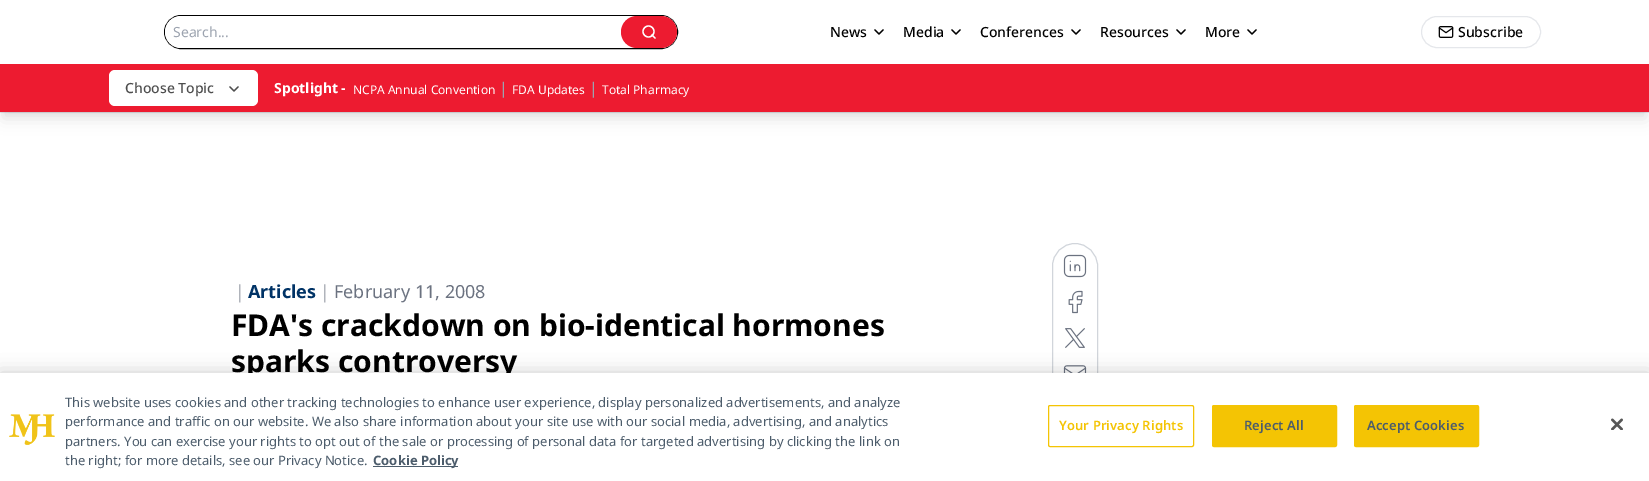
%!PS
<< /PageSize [1649 481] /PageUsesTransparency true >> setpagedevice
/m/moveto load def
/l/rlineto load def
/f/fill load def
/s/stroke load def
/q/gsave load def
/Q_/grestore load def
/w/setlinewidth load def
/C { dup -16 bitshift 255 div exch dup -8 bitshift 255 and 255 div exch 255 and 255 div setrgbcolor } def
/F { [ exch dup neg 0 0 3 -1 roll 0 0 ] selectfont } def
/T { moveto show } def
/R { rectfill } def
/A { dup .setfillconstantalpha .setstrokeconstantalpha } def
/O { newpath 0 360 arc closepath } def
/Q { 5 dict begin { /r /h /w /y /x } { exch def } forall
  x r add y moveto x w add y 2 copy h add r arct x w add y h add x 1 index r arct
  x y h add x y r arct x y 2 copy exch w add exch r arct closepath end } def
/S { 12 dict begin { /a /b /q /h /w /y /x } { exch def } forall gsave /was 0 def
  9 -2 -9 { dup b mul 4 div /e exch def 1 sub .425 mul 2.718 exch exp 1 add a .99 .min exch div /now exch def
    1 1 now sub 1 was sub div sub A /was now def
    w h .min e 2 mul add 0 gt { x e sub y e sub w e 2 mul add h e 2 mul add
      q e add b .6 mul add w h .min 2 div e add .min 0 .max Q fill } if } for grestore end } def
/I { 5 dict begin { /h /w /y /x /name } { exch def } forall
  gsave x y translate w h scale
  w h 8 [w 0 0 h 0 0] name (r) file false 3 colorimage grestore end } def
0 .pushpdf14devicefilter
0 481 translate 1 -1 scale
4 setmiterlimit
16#FFFFFF C
0 0 1649 481 R
16#E5E7EB C
0 112 1649 1 R
16#000000 C
164.5 15.5 513 33 16.5 Q s
16#FFFFFF C
165 16 512 32 16 Q f
/NotoSans-Regular 14 F
16#9CA3AF C
(Search...) 173 37 T
16#ED1B30 C
621 16 56 32 16 Q f
16#FFFFFF C
1.3 w
648.5 31.5 5.5 O s
1 setlinecap
1 setlinejoin
655 38 m -3 -3 l s
/NotoSans-Medium 14 F
16#000000 C
(News) 830 37 T
875 30 m 4 4 l 4 -4 l s
(Media) 903 37 T
952 30 m 4 4 l 4 -4 l s
(Conferences) 980 37 T
1072 30 m 4 4 l 4 -4 l s
(Resources) 1100 37 T
1177 30 m 4 4 l 4 -4 l s
(More) 1205 37 T
1248 30 m 4 4 l 4 -4 l s
16#E5E7EB C
1 w
0 setlinecap
0 setlinejoin
1421.5 16.5 119 31 15.5 Q s
(1.rgb) 1438 26 16 12 I
16#000000 C
(Subscribe) 1458 37 T
4 72 1641 40 0 3 .1 S
3 77 1643 42 0 7.5 .1 S
16#ED1B30 C
0 64 1649 48 R
16#FFFFFF C
109 70 149 36 6 Q f
16#4D4D4D C
(Choose Topic) 125 93 T
1.3 w
1 setlinecap
1 setlinejoin
230 87 m 4 4 l 4 -4 l s
/NotoSans-Bold 14 F
16#FFFFFF C
(Spotlight -) 274 93 T
/NotoSans-Regular 12 F
(NCPA Annual Convention) 353 94 T
/NotoSans-Regular 16 F
16#9CA3AF C
(|) 499 94 T
/NotoSans-Regular 12 F
16#FFFFFF C
(FDA Updates) 512 94 T
/NotoSans-Regular 16 F
16#9CA3AF C
(|) 589 94 T
/NotoSans-Regular 12 F
16#FFFFFF C
(Total Pharmacy) 602 94 T
/NotoSans-Light 18 F
16#6B7280 C
(|) 235 298 T
/NotoSans-Bold 18 F
16#003366 C
(Articles) 248 298 T
/NotoSans-Light 18 F
16#6B7280 C
(|) 320 298 T
/NotoSans-Regular 18 F
(February 11, 2008) 334 298 T
/NotoSans-Bold 30 F
16#000000 C
(FDA's crackdown on bio-identical hormones) 231 336 T
(sparks controversy) 231 372 T
16#D1D5DB C
1 w
0 setlinecap
0 setlinejoin
1052.5 243.5 45 189 22.5 Q s
(2.rgb) 1063 254 24 24 I
(3.rgb) 1068 290 15 24 I
(4.rgb) 1065 328 20 20 I
(5.rgb) 1063 365 24 8 I
16#000000 C
0 373 1649 108 0 9 .2 S
16#FFFFFF C
0 373 1649 108 R
(6.rgb) 9 414 46 31 I
/NotoSans-Regular 13 F
16#4C5C6B C
(This website uses cookies and other tracking technologies to enhance user experience, display personalized advertisements, and analyze) 65 407 T
(performance and traffic on our website. We also share information about your site use with our social media, advertising, and analytics) 65 426 T
(partners. You can exercise your rights to opt out of the sale or processing of personal data for targeted advertising by clicking the link on) 65 446 T
(the right; for more details, see our Privacy Notice.) 65 465 T
373 466 85 1 R
/NotoSans-Bold 13 F
(Cookie Policy) 373 465 T
16#F4C404 C
1048.5 405.5 145 41 1.5 Q s
/NotoSans-SemiBold 13 F
1059 430 m .1 0 (Your Privacy Rights) ashow
1212.5 405.5 124 41 1.5 Q q f Q_
s
16#4C5C6B C
1244 430 m .1 0 (Reject All) ashow
16#F4C404 C
1354.5 405.5 124 41 1.5 Q q f Q_
s
16#4C5C6B C
1367 430 m .1 0 (Accept Cookies) ashow
(7.rgb) 1611 418 12 12 I
.poppdf14devicefilter showpage
